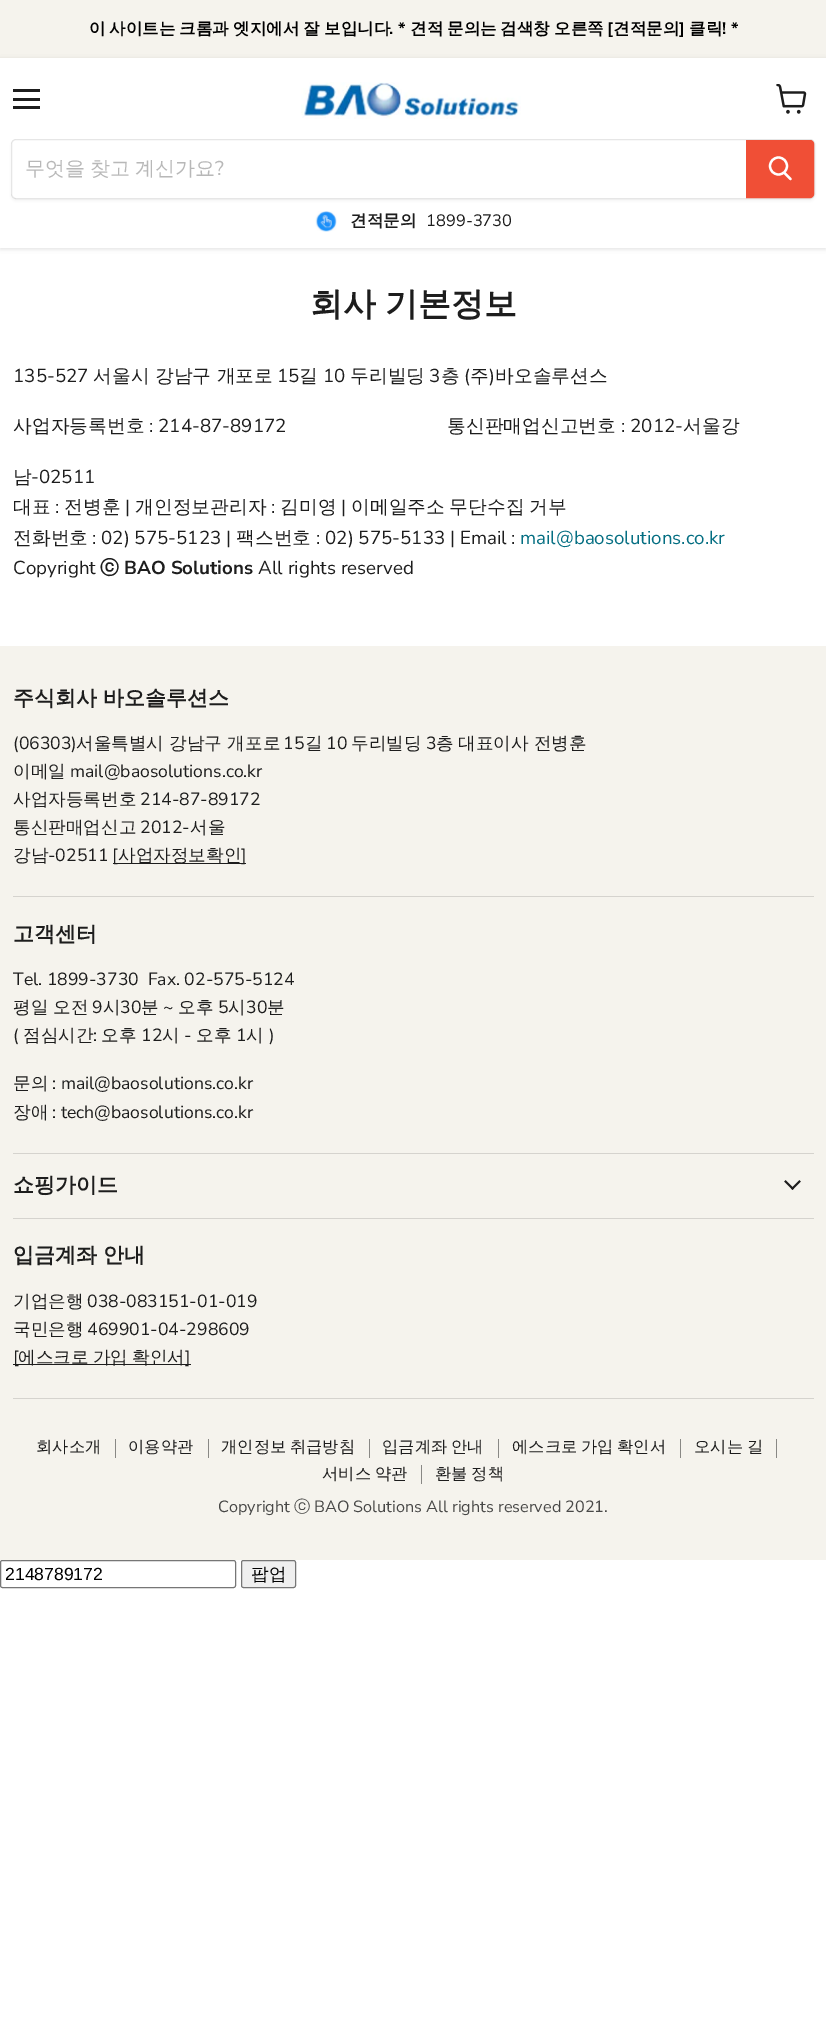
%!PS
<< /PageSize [826 2020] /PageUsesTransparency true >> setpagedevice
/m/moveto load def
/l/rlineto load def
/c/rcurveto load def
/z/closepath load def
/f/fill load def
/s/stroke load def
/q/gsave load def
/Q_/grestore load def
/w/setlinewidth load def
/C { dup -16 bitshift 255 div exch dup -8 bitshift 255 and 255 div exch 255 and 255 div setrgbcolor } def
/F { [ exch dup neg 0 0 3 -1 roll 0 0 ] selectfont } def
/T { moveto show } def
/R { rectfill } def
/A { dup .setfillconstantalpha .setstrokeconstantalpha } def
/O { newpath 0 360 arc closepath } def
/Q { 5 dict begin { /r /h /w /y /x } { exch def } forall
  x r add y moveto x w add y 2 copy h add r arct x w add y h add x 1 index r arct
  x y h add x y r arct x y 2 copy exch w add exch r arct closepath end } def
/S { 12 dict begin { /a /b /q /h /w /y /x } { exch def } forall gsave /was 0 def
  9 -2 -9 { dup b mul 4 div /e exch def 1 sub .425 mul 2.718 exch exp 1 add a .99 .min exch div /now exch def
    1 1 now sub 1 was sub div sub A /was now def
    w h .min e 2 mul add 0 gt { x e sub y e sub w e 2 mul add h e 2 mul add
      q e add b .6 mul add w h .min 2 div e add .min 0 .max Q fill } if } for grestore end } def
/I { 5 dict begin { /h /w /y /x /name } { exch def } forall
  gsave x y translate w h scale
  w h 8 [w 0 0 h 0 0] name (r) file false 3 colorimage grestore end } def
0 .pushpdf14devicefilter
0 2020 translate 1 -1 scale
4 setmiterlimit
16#FFFFFF C
0 0 826 2020 R
16#F5F3ED C
0 0 826 58 R
/WenQuanYiZenHei-Bold 16.5 F
16#000000 C
(이) 89 34 T
(사이트는) 109 34 T
(크롬과) 179 34 T
(엣지에서) 233 34 T
(잘) 303 34 T
(보입니다) 324 34 T
/NunitoSans-Bold 16.5 F
(. *) 389 34 T
/WenQuanYiZenHei-Bold 16.5 F
(견적) 410 34 T
(문의는) 447 34 T
(검색창) 500 34 T
(오른쪽) 554 34 T
/NunitoSans-Bold 16.5 F
([) 607 34 T
/WenQuanYiZenHei-Bold 16.5 F
(견적문의) 613 34 T
/NunitoSans-Bold 16.5 F
(]) 679 34 T
/WenQuanYiZenHei-Bold 16.5 F
(클릭) 689 34 T
/NunitoSans-Bold 16.5 F
(! *) 722 34 T
16#808080 C
0 59 826 190 0 2.5 .25 S
16#FFFFFF C
0 58 826 190 R
16#1D1D1D C
13 89 27 3 R
13 98 27 3 R
13 106 27 3 R
(1.rgb) 776 84 31 30 I
(2.rgb) 301 82 220 37 I
q
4 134 m 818 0 l 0 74 l -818 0 l z 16 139 m 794 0 l 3 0 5 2 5 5 c 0 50 l 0 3 -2 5 -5 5 c -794 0 l -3 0 -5 -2 -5 -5 c 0 -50 l 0 -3 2 -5 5 -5 c z eoclip newpath
16#808080 C
11 141 804 60 5 2 .11 S
Q_
0.2 A
16#808080 C
11.5 139.5 803 59 4.5 Q s
/WenQuanYiZenHei-Medium 20 F
1 A
16#B8B8B8 C
25 175 m -1 0 32 (무엇을 찾고 계신가요) widthshow
/NunitoSans-Regular 20 F
(?) 215 175 T
16#F04F36 C
746.5 140.5 m 63.5 0 l 2 0 3.5 1.5 3.5 3.5 c 0 50 l 0 2 -1.5 3.5 -3.5 3.5 c -63.5 0 l z q f Q_
s
16#FFFFFF C
2.2 w
1 setlinecap
790.5 179 m -6 -6 l s
0 setlinecap
778.5 166 8.5 O s
(3.rgb) 315 211 22 21 I
/WenQuanYiZenHei-Bold 16.5 F
16#1D1D1D C
(견적문의) 350 226 T
/NunitoSans-Regular 16.5 F
(1899-3730) 426 226 T
/WenQuanYiZenHei-Bold 32.75 F
(회사 기본정보) 310 315 T
/NunitoSans-Regular 18.75 F
(135-527) 13 382 T
/WenQuanYiZenHei-Medium 18.75 F
(서울시 강남구 개포로) 93 382 T
/NunitoSans-Regular 18.75 F
(15) 277 382 T
/WenQuanYiZenHei-Medium 18.75 F
(길) 299 382 T
/NunitoSans-Regular 18.75 F
(10) 323 382 T
/WenQuanYiZenHei-Medium 18.75 F
(두리빌딩) 350 382 T
/NunitoSans-Regular 18.75 F
(3) 429 382 T
/WenQuanYiZenHei-Medium 18.75 F
(층) 441 382 T
/NunitoSans-Regular 18.75 F
(\() 464 382 T
/WenQuanYiZenHei-Medium 18.75 F
(주) 470 382 T
/NunitoSans-Regular 18.75 F
(\)) 489 382 T
/WenQuanYiZenHei-Medium 18.75 F
(바오솔루션스) 495 382 T
(사업자등록번호) 13 432 T
/NunitoSans-Regular 18.75 F
(: 214-87-89172) 149 432 T
/WenQuanYiZenHei-Medium 18.75 F
(통신판매업신고번호) 447 432 T
/NunitoSans-Regular 18.75 F
(: 2012-) 621 432 T
/WenQuanYiZenHei-Medium 18.75 F
(서울강) 683 432 T
(남) 13 483 T
/NunitoSans-Regular 18.75 F
(-02511) 31 483 T
/WenQuanYiZenHei-Medium 18.75 F
(대표) 13 513 T
/NunitoSans-Regular 18.75 F
(:) 55 513 T
/WenQuanYiZenHei-Medium 18.75 F
(전병훈) 64 513 T
/NunitoSans-Regular 18.75 F
(|) 125 513 T
/WenQuanYiZenHei-Medium 18.75 F
(개인정보관리자) 135 513 T
/NunitoSans-Regular 18.75 F
(:) 271 513 T
/WenQuanYiZenHei-Medium 18.75 F
(김미영) 280 513 T
/NunitoSans-Regular 18.75 F
(|) 341 513 T
/WenQuanYiZenHei-Medium 18.75 F
351 513 m -1 0 32 (이메일주소 무단수집 거부) widthshow
(전화번호) 13 544 T
/NunitoSans-Regular 18.75 F
(: 02\) 575-5123 |) 92 544 T
/WenQuanYiZenHei-Medium 18.75 F
(팩스번호) 236 544 T
/NunitoSans-Regular 18.75 F
(: 02\) 575-5133 | Email :) 316 544 T
16#046E82 C
(mail@baosolutions.co.kr) 520 544 T
16#1D1D1D C
(Copyright) 13 574 T
/WenQuanYiZenHei-Bold 18.75 F
(ⓒ) 100 574 T
/NunitoSans-Bold 18.75 F
(BAO Solutions) 124 574 T
/NunitoSans-Regular 18.75 F
(All rights reserved) 258 574 T
16#F5F3ED C
0 646 826 914 R
16#D5D3CE C
13 896 801 1 R
/WenQuanYiZenHei-Bold 21 F
16#1D1D1D C
(주식회사 바오솔루션스) 13 705 T
/NunitoSans-Regular 17.6 F
(\(06303\)) 13 749 T
/WenQuanYiZenHei-Medium 17.6 F
(서울특별시 강남구 개포로) 76 749 T
/NunitoSans-Regular 17.6 F
(15) 283 749 T
/WenQuanYiZenHei-Medium 17.6 F
(길) 305 749 T
/NunitoSans-Regular 17.6 F
(10) 326 749 T
/WenQuanYiZenHei-Medium 17.6 F
(두리빌딩) 351 749 T
/NunitoSans-Regular 17.6 F
(3) 426 749 T
/WenQuanYiZenHei-Medium 17.6 F
(층) 436 749 T
(대표이사 전병훈) 458 749 T
(이메일) 13 777 T
/NunitoSans-Regular 17.6 F
(mail@baosolutions.co.kr) 70 777 T
/WenQuanYiZenHei-Medium 17.6 F
(사업자등록번호) 13 805 T
/NunitoSans-Regular 17.6 F
(214-87-89172) 140 805 T
/WenQuanYiZenHei-Medium 17.6 F
(통신판매업신고) 13 833 T
/NunitoSans-Regular 17.6 F
(2012-) 140 833 T
/WenQuanYiZenHei-Medium 17.6 F
(서울) 190 833 T
(강남) 13 861 T
/NunitoSans-Regular 17.6 F
(-02511) 48 861 T
113 863 133 1 R
([) 112 861 T
/WenQuanYiZenHei-Medium 17.6 F
(사업자정보확인) 118 861 T
/NunitoSans-Regular 17.6 F
(]) 241 861 T
16#D5D3CE C
13 1153 801 1 R
/WenQuanYiZenHei-Bold 21 F
16#1D1D1D C
(고객센터) 13 941 T
/NunitoSans-Regular 17.6 F
(Tel. 1899-3730  Fax. 02-575-5124) 13 985 T
/WenQuanYiZenHei-Medium 17.6 F
(평일 오전) 13 1013 T
/NunitoSans-Regular 17.6 F
(9) 92 1013 T
/WenQuanYiZenHei-Medium 17.6 F
(시) 103 1013 T
/NunitoSans-Regular 17.6 F
(30) 120 1013 T
/WenQuanYiZenHei-Medium 17.6 F
(분) 141 1013 T
/NunitoSans-Regular 17.6 F
(~) 163 1013 T
/WenQuanYiZenHei-Medium 17.6 F
(오후) 178 1013 T
/NunitoSans-Regular 17.6 F
(5) 218 1013 T
/WenQuanYiZenHei-Medium 17.6 F
(시) 228 1013 T
/NunitoSans-Regular 17.6 F
(30) 246 1013 T
/WenQuanYiZenHei-Medium 17.6 F
(분) 267 1013 T
/NunitoSans-Regular 17.6 F
(\() 13 1041 T
/WenQuanYiZenHei-Medium 17.6 F
(점심시간) 23 1041 T
/NunitoSans-Regular 17.6 F
(:) 93 1041 T
/WenQuanYiZenHei-Medium 17.6 F
(오후) 101 1041 T
/NunitoSans-Regular 17.6 F
(12) 141 1041 T
/WenQuanYiZenHei-Medium 17.6 F
(시) 162 1041 T
/NunitoSans-Regular 17.6 F
(-) 184 1041 T
/WenQuanYiZenHei-Medium 17.6 F
(오후) 196 1041 T
/NunitoSans-Regular 17.6 F
(1) 236 1041 T
/WenQuanYiZenHei-Medium 17.6 F
(시) 246 1041 T
/NunitoSans-Regular 17.6 F
(\)) 269 1041 T
/WenQuanYiZenHei-Medium 17.6 F
(문의) 13 1089 T
/NunitoSans-Regular 17.6 F
(: mail@baosolutions.co.kr) 52 1089 T
/WenQuanYiZenHei-Medium 17.6 F
(장애) 13 1118 T
/NunitoSans-Regular 17.6 F
(: tech@baosolutions.co.kr) 52 1118 T
16#D5D3CE C
13 1218 801 1 R
/WenQuanYiZenHei-Bold 21 F
16#1D1D1D C
(쇼핑가이드) 13 1192 T
(4.rgb) 784 1180 17 10 I
16#D5D3CE C
13 1398 801 1 R
16#1D1D1D C
(입금계좌 안내) 13 1262 T
/WenQuanYiZenHei-Medium 17.6 F
(기업은행) 13 1307 T
/NunitoSans-Regular 17.6 F
(038-083151-01-019) 87 1307 T
/WenQuanYiZenHei-Medium 17.6 F
(국민은행) 13 1335 T
/NunitoSans-Regular 17.6 F
(469901-04-298609) 87 1335 T
13 1364 178 1 R
([) 13 1363 T
/WenQuanYiZenHei-Medium 17.6 F
18 1363 m -1 0 32 (에스크로 가입 확인서) widthshow
/NunitoSans-Regular 17.6 F
(]) 185 1363 T
16#898885 C
115 1439 1 19 R
/WenQuanYiZenHei-Medium 16.25 F
16#1D1D1D C
(회사소개) 36 1452 T
16#898885 C
208 1439 1 19 R
16#1D1D1D C
(이용약관) 128 1452 T
16#898885 C
369 1439 1 19 R
16#1D1D1D C
221 1452 m -1 0 32 (개인정보 취급방침) widthshow
16#898885 C
498 1439 1 19 R
16#1D1D1D C
382 1452 m -1 0 32 (입금계좌 안내) widthshow
16#898885 C
680 1439 1 19 R
16#1D1D1D C
512 1452 m -1 0 32 (에스크로 가입 확인서) widthshow
16#898885 C
776 1439 1 19 R
16#1D1D1D C
694 1452 m -1 0 32 (오시는 길) widthshow
16#898885 C
421 1465 1 19 R
16#1D1D1D C
322 1479 m -1 0 32 (서비스 약관) widthshow
435 1479 m -1 0 32 (환불 정책) widthshow
/NunitoSans-Regular 16.25 F
16#484847 C
(Copyright) 218 1512 T
/WenQuanYiZenHei-Medium 16.25 F
(ⓒ) 294 1512 T
/NunitoSans-Regular 16.25 F
(BAO Solutions All rights reserved 2021.) 314 1512 T
16#767676 C
1 w
.5 1560.5 235 27 2 Q s
/LiberationSans-Regular 17.6 F
16#000000 C
(2148789172) 5 1580 T
16#EFEFEF C
241.5 1560.5 54 27 2 Q q f Q_
16#767676 C
s
/WenQuanYiZenHei-Medium 17.6 F
16#000000 C
(팝업) 251 1580 T
.poppdf14devicefilter showpage
